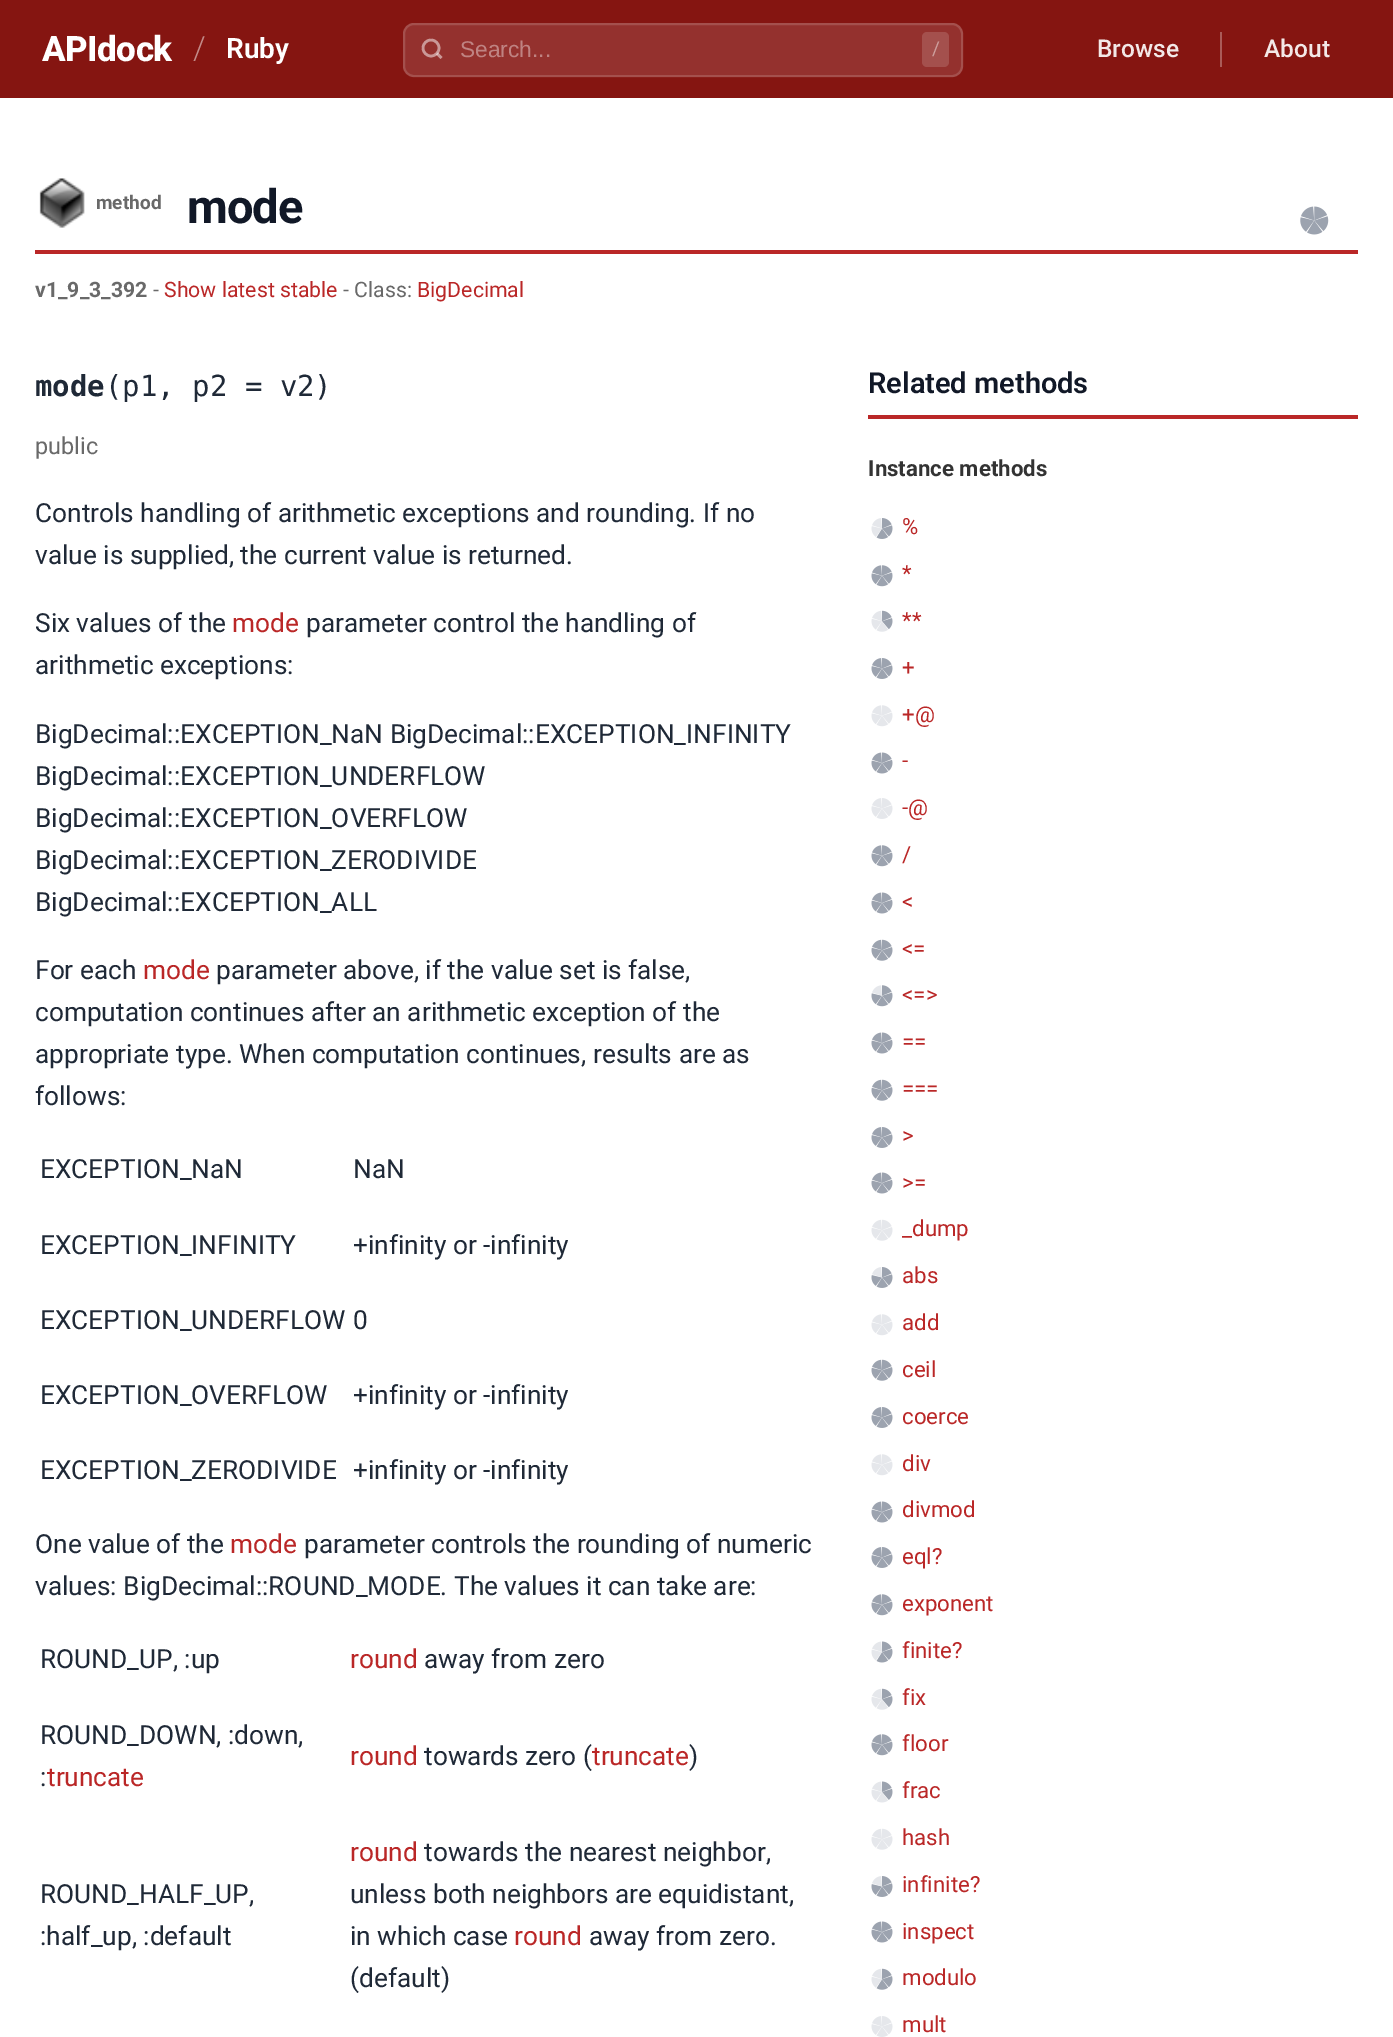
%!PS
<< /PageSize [1393 2037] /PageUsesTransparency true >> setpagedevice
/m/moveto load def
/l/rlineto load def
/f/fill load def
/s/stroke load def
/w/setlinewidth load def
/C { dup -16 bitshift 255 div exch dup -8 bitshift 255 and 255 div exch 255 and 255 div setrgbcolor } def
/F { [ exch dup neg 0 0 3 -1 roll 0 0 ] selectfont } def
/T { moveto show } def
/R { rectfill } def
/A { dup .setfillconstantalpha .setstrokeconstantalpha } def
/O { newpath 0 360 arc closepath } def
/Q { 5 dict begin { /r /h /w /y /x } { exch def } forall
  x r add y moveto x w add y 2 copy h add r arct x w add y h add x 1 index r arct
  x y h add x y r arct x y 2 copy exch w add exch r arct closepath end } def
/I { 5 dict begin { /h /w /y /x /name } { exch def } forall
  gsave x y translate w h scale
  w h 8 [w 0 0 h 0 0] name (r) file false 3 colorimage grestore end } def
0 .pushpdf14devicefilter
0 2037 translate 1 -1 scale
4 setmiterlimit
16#FFFFFF C
0 0 1393 2037 R
16#851511 C
0 0 1393 98 R
/Roboto-ExtraBold 35 F
16#FFFFFF C
42 61 m -.5 0 (APIdock) ashow
/Roboto-Light 32 F
16#C28A88 C
(/) 193 59 T
/Roboto-SemiBold 28 F
16#FFFFFF C
(Ruby) 226 58 T
16#94312E C
403 23 560 54 11 Q f
0.15 A
16#FFFFFF C
2 w
404 24 558 52 10 Q s
1 A
16#CA9897 C
2.6 w
431 48 8 O s
0.5 A
16#FFFFFF C
441.5 58 m -4.5 -4.5 l s
/LiberationSans-Regular 22.75 F
1 A
16#BF8382 C
(Search...) 460 57 T
16#A4504D C
922 32 27 35 5 Q f
/Roboto-Regular 19 F
16#CD9F9D C
(/) 932 55 T
/Roboto-Medium 24.5 F
16#F3E8E7 C
(Browse) 1097 57 T
16#AA5B58 C
1220 32 2 35 R
16#F3E8E7 C
(About) 1264 57 T
16#BA2727 C
35 250 1323 4 R
(1.rgb) 39 178 46 50 I
/Roboto-Bold 19 F
16#696969 C
(method) 96 209 T
/Roboto-Bold 47 F
16#111827 C
187 223 m -1 0 (mode) ashow
(2.rgb) 1300 206 29 29 I
/Roboto-Bold 21.25 F
16#696969 C
(v1_9_3_392) 35 297 T
/Roboto-Regular 21.25 F
(-) 153 297 T
16#BA2727 C
(Show latest stable) 164 297 T
16#696969 C
(- Class:) 343 297 T
16#BA2727 C
(BigDecimal) 417 297 T
/DejaVuSansMono-Bold 29 F
16#1F2937 C
(mode) 35 396 T
/DejaVuSansMono-Regular 29 F
(\(p1, p2 = v2\)) 105 396 T
/Roboto-Regular 23.5 F
16#696969 C
(public) 35 454 T
/Roboto-Regular 26.25 F
16#1F2937 C
(Controls handling of arithmetic exceptions and rounding. If no) 35 522 T
(value is supplied, the current value is returned.) 35 564 T
(Six values of the) 35 632 T
16#BA2727 C
(mode) 232 632 T
16#1F2937 C
(parameter control the handling of) 306 632 T
(arithmetic exceptions:) 35 674 T
(BigDecimal::EXCEPTION_NaN BigDecimal::EXCEPTION_INFINITY) 35 743 T
(BigDecimal::EXCEPTION_UNDERFLOW) 35 785 T
(BigDecimal::EXCEPTION_OVERFLOW) 35 827 T
(BigDecimal::EXCEPTION_ZERODIVIDE) 35 869 T
(BigDecimal::EXCEPTION_ALL) 35 911 T
(For each) 35 979 T
16#BA2727 C
(mode) 143 979 T
16#1F2937 C
(parameter above, if the value set is false,) 216 979 T
(computation continues after an arithmetic exception of the) 35 1021 T
(appropriate type. When computation continues, results are as) 35 1063 T
(follows:) 35 1105 T
(EXCEPTION_NaN) 40 1178 T
(NaN) 353 1178 T
(EXCEPTION_INFINITY) 40 1254 T
(+infinity or -infinity) 353 1254 T
(EXCEPTION_UNDERFLOW) 40 1329 T
(0) 353 1329 T
(EXCEPTION_OVERFLOW) 40 1404 T
(+infinity or -infinity) 353 1404 T
(EXCEPTION_ZERODIVIDE) 40 1479 T
(+infinity or -infinity) 353 1479 T
(One value of the) 35 1553 T
16#BA2727 C
(mode) 230 1553 T
16#1F2937 C
(parameter controls the rounding of numeric) 304 1553 T
(values: BigDecimal::ROUND_MODE. The values it can take are:) 35 1595 T
(ROUND_UP, :up) 40 1668 T
16#BA2727 C
(round) 350 1668 T
16#1F2937 C
(away from zero) 424 1668 T
(ROUND_DOWN, :down,) 40 1744 T
(:) 40 1786 T
16#BA2727 C
(truncate) 47 1786 T
(round) 350 1765 T
16#1F2937 C
(towards zero \() 424 1765 T
16#BA2727 C
(truncate) 592 1765 T
16#1F2937 C
(\)) 689 1765 T
(ROUND_HALF_UP,) 40 1903 T
(:half_up, :default) 40 1945 T
16#BA2727 C
(round) 350 1861 T
16#1F2937 C
(towards the nearest neighbor,) 424 1861 T
(unless both neighbors are equidistant,) 350 1903 T
(in which case) 350 1945 T
16#BA2727 C
(round) 514 1945 T
16#1F2937 C
(away from zero.) 589 1945 T
(\(default\)) 350 1987 T
16#BA2727 C
868 415 490 4 R
/Roboto-SemiBold 29 F
16#111827 C
(Related methods) 868 393 T
/Roboto-Bold 22.25 F
16#333333 C
(Instance methods) 868 476 T
(3.rgb) 871 518 22 21 I
/Roboto-Regular 22.25 F
16#BA2727 C
(%) 902 534 T
(4.rgb) 871 565 22 22 I
(*) 902 581 T
(5.rgb) 871 610 22 22 I
(**) 902 628 T
(6.rgb) 871 658 22 21 I
(+) 902 675 T
(7.rgb) 871 705 22 22 I
(+@) 902 722 T
(8.rgb) 871 752 22 22 I
(-) 902 768 T
(9.rgb) 871 798 22 21 I
(-@) 902 815 T
(4.rgb) 871 845 22 22 I
(/) 902 862 T
(8.rgb) 871 892 22 22 I
(<) 902 909 T
(10.rgb) 871 939 22 22 I
(<=) 902 956 T
(11.rgb) 871 985 22 22 I
(<=>) 902 1002 T
(8.rgb) 871 1032 22 22 I
(==) 902 1049 T
(10.rgb) 871 1079 22 22 I
(===) 902 1096 T
(6.rgb) 871 1127 22 21 I
(>) 902 1143 T
(8.rgb) 871 1172 22 22 I
(>=) 902 1190 T
(12.rgb) 871 1219 22 22 I
(_dump) 902 1236 T
(13.rgb) 871 1267 22 21 I
(abs) 902 1283 T
(7.rgb) 871 1314 22 22 I
(add) 902 1330 T
(10.rgb) 871 1359 22 22 I
(ceil) 902 1377 T
(6.rgb) 871 1407 22 21 I
(coerce) 902 1424 T
(7.rgb) 871 1454 22 22 I
(div) 902 1471 T
(8.rgb) 871 1501 22 22 I
(divmod) 902 1517 T
(6.rgb) 871 1547 22 21 I
(eql?) 902 1564 T
(4.rgb) 871 1594 22 22 I
(exponent) 902 1611 T
(14.rgb) 871 1641 22 22 I
(finite?) 902 1658 T
(5.rgb) 871 1688 22 22 I
(fix) 902 1705 T
(4.rgb) 871 1734 22 22 I
(floor) 902 1751 T
(15.rgb) 871 1781 22 22 I
(frac) 902 1798 T
(12.rgb) 871 1828 22 22 I
(hash) 902 1845 T
(13.rgb) 871 1876 22 21 I
(infinite?) 902 1892 T
(8.rgb) 871 1921 22 22 I
(inspect) 902 1939 T
(16.rgb) 871 1968 22 22 I
(modulo) 902 1985 T
(9.rgb) 871 2016 22 21 I
(mult) 902 2032 T
.poppdf14devicefilter showpage
